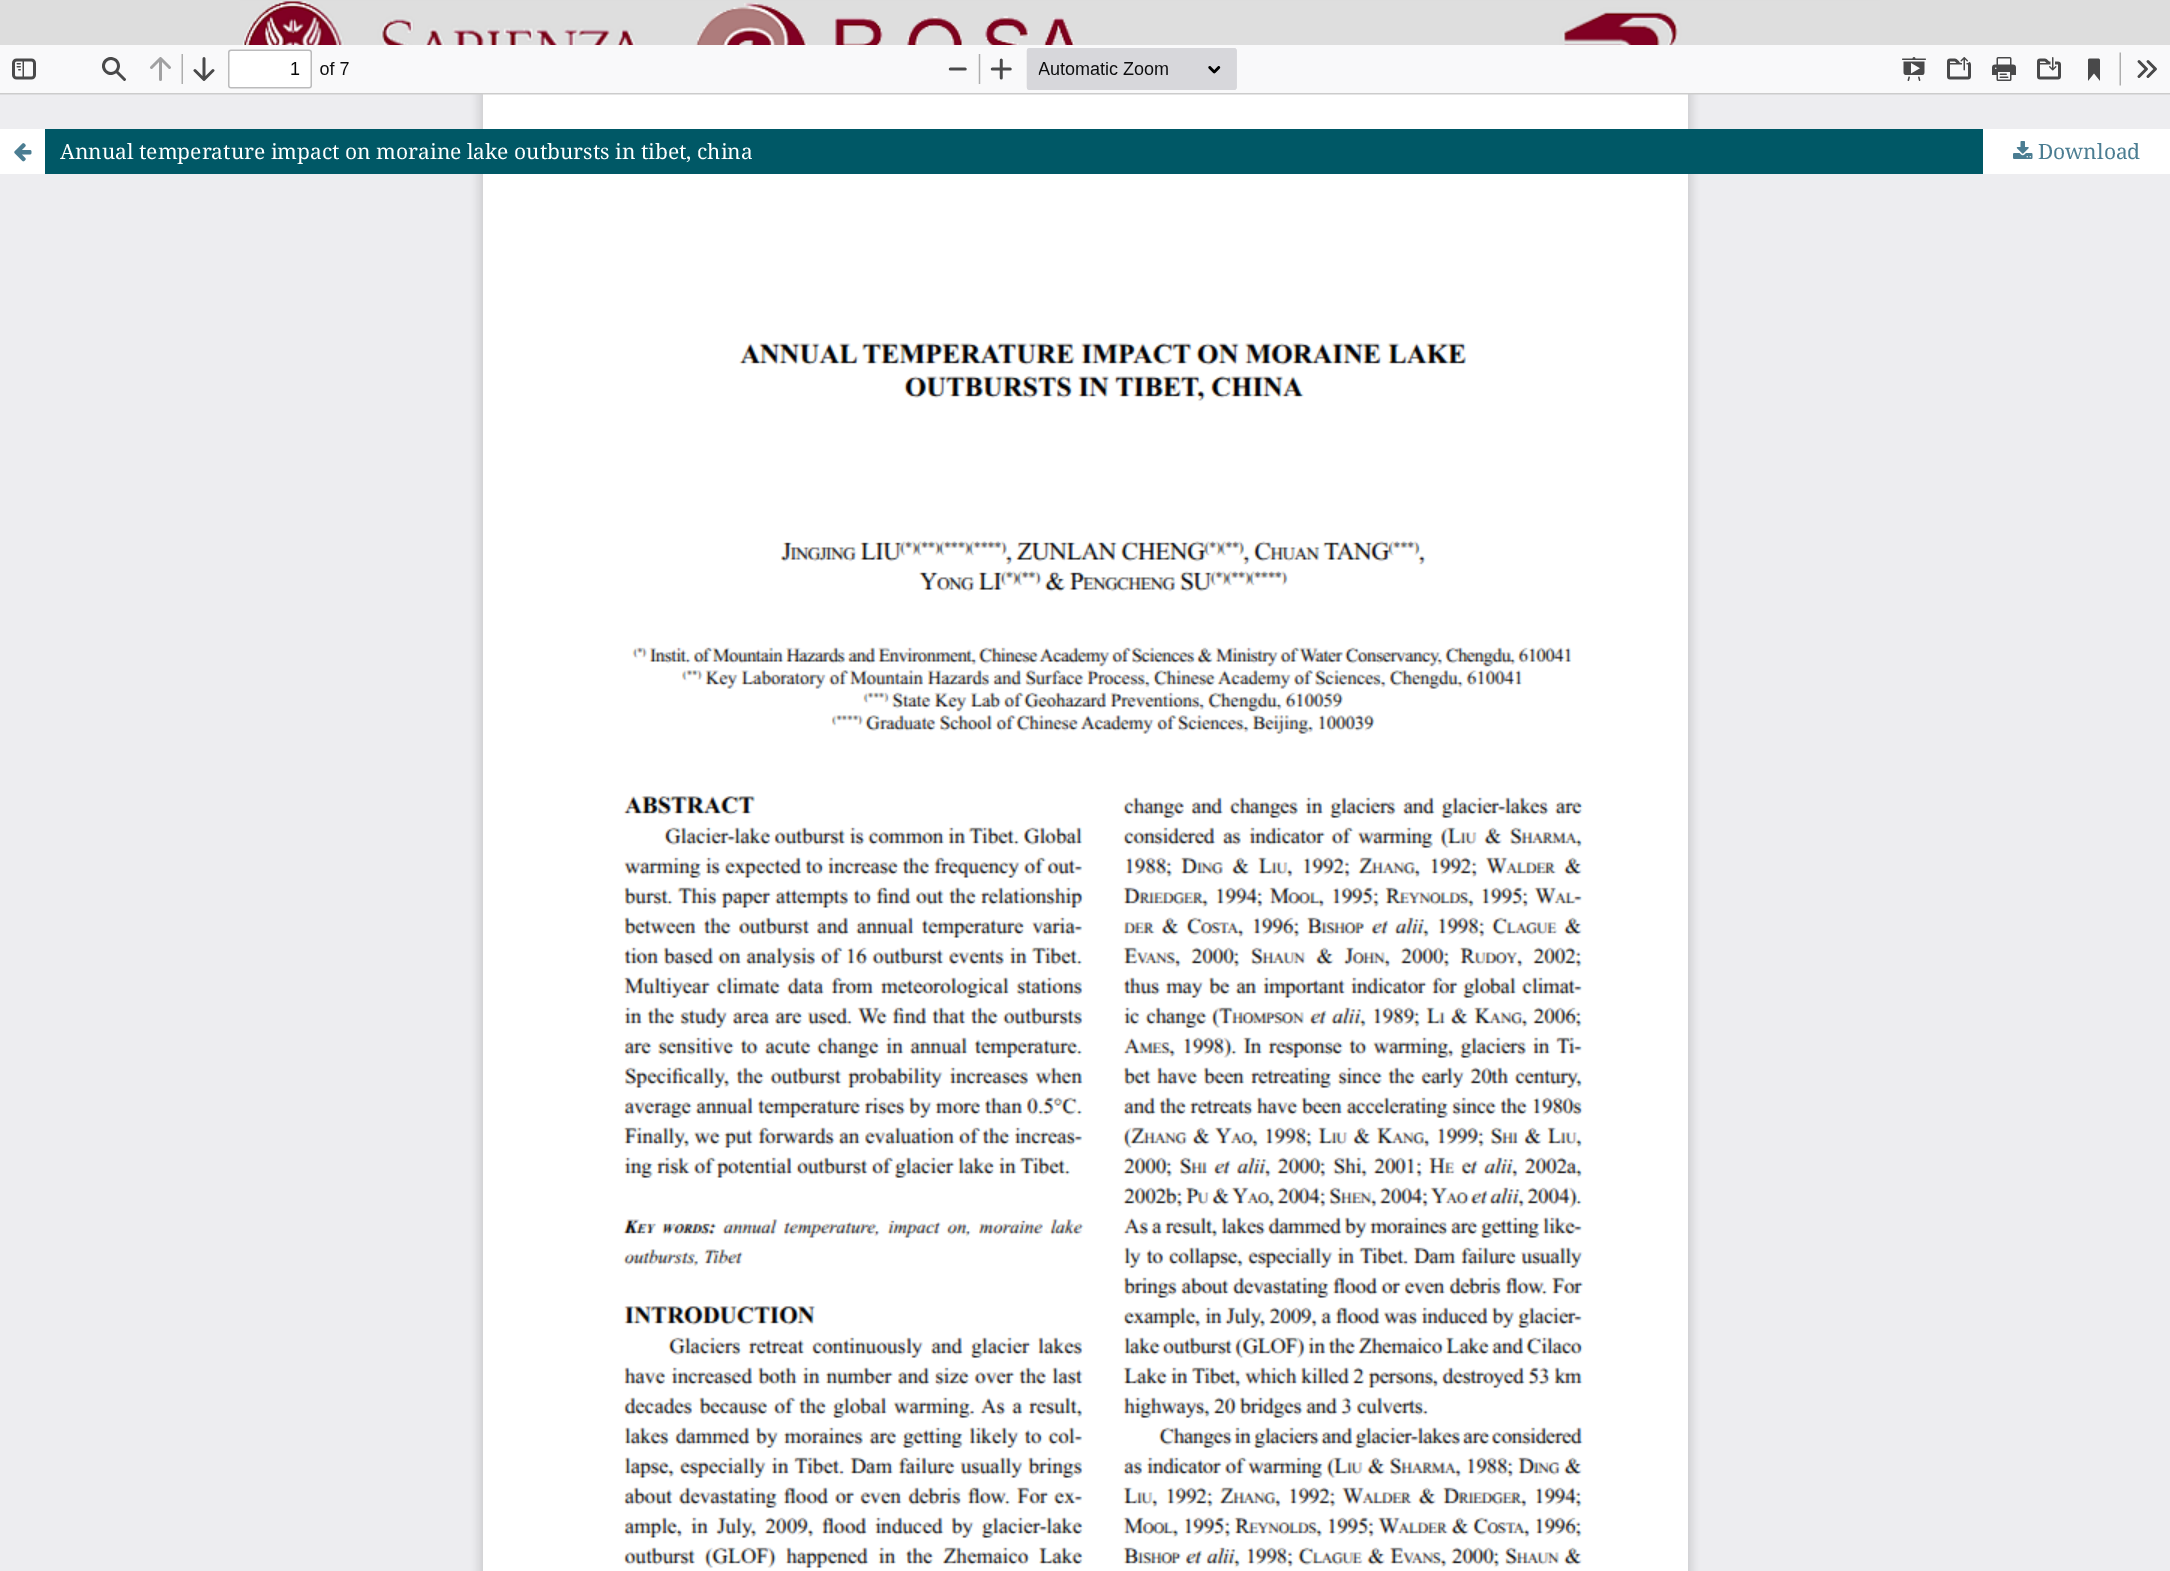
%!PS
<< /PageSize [2170 1571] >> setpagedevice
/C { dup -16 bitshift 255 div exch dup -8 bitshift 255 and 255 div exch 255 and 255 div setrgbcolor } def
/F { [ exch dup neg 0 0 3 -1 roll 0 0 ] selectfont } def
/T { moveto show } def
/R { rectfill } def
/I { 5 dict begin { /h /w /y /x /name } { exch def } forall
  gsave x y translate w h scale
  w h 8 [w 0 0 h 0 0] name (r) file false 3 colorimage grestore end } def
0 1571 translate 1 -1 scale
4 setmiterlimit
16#DDDDDD C
0 0 2170 1571 R
(1.rgb) 240 1 1640 44 I
(2.rgb) 0 45 2170 1526 I
16#005866 C
45 129 1938 45 R
16#FFFFFF C
0 129 45 45 R
(3.rgb) 14 143 18 19 I
/NotoSerif-Regular 21 F
(Annual temperature impact on moraine lake outbursts in tibet, china) 60 159 T
1983 129 187 45 R
(4.rgb) 2013 141 20 18 I
16#4B7D92 C
(Download) 2038 159 T
showpage
